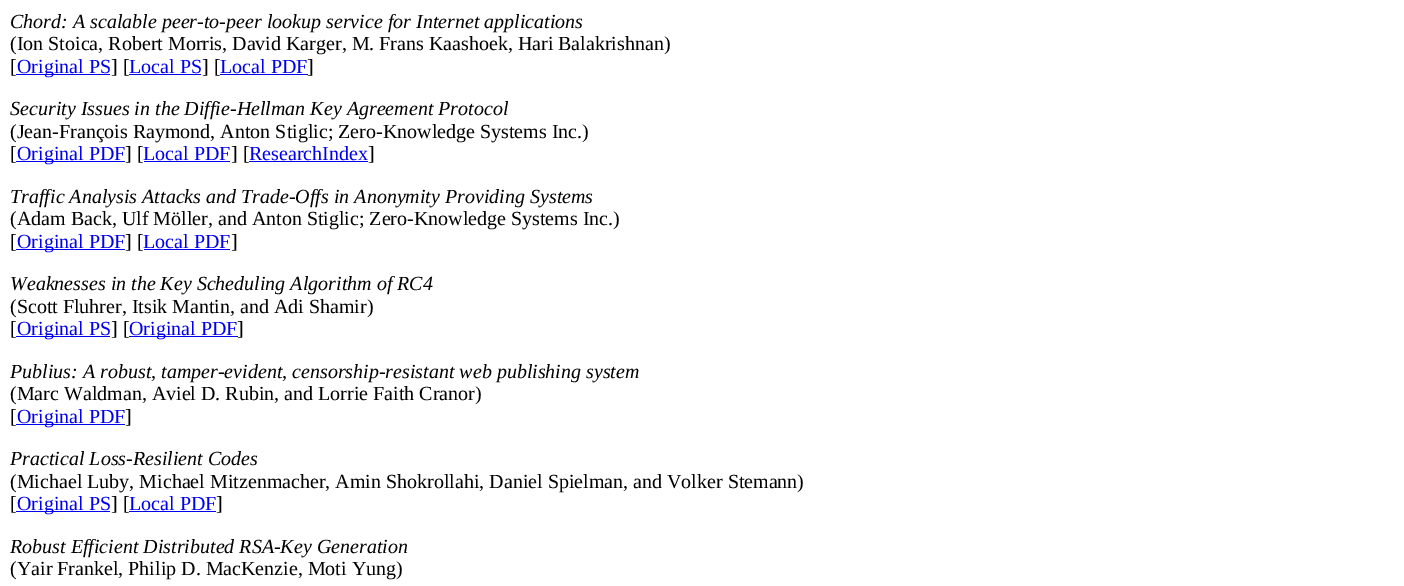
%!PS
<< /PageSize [1404 586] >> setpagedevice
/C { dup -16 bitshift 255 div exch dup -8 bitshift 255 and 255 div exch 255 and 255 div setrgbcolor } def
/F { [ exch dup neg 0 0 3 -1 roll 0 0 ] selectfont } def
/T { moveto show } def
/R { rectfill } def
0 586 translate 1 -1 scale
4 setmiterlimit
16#FFFFFF C
0 0 1404 586 R
/LiberationSerif-Italic 20 F
16#000000 C
(Chord: A scalable peer-to-peer lookup service for Internet applications) 10 28 T
/LiberationSerif-Regular 20 F
(\(Ion Stoica, Robert Morris, David Karger, M. Frans Kaashoek, Hari Balakrishnan\)) 10 50 T
([) 10 73 T
16#0000EE C
16 74 94 1 R
(Original PS) 17 73 T
16#000000 C
(] [) 111 73 T
16#0000EE C
(Local PS) 129 73 T
129 74 72 1 R
16#000000 C
(] [) 202 73 T
16#0000EE C
(Local PDF) 220 73 T
220 74 88 1 R
16#000000 C
(]) 307 73 T
/LiberationSerif-Italic 20 F
(Security Issues in the Diffie-Hellman Key Agreement Protocol) 10 115 T
/LiberationSerif-Regular 20 F
(\(Jean-François Raymond, Anton Stiglic; Zero-Knowledge Systems Inc.\)) 10 138 T
([) 10 160 T
16#0000EE C
16 161 109 1 R
(Original PDF) 17 160 T
16#000000 C
(] [) 125 160 T
16#0000EE C
(Local PDF) 143 160 T
144 161 86 1 R
16#000000 C
(] [) 231 160 T
16#0000EE C
(ResearchIndex) 249 160 T
249 161 119 1 R
16#000000 C
(]) 368 160 T
/LiberationSerif-Italic 20 F
(Traffic Analysis Attacks and Trade-Offs in Anonymity Providing Systems) 10 203 T
/LiberationSerif-Regular 20 F
(\(Adam Back, Ulf Möller, and Anton Stiglic; Zero-Knowledge Systems Inc.\)) 10 225 T
([) 10 248 T
16#0000EE C
16 249 109 1 R
(Original PDF) 17 248 T
16#000000 C
(] [) 125 248 T
16#0000EE C
(Local PDF) 143 248 T
144 249 86 1 R
16#000000 C
(]) 231 248 T
/LiberationSerif-Italic 20 F
(Weaknesses in the Key Scheduling Algorithm of RC4) 10 290 T
/LiberationSerif-Regular 20 F
(\(Scott Fluhrer, Itsik Mantin, and Adi Shamir\)) 10 313 T
([) 10 335 T
16#0000EE C
16 336 94 1 R
(Original PS) 17 335 T
16#000000 C
(] [) 111 335 T
16#0000EE C
129 336 109 1 R
(Original PDF) 129 335 T
16#000000 C
(]) 237 335 T
/LiberationSerif-Italic 20 F
(Publius: A robust, tamper-evident, censorship-resistant web publishing system) 10 378 T
/LiberationSerif-Regular 20 F
(\(Marc Waldman, Aviel D. Rubin, and Lorrie Faith Cranor\)) 10 400 T
([) 10 423 T
16#0000EE C
16 424 109 1 R
(Original PDF) 17 423 T
16#000000 C
(]) 125 423 T
/LiberationSerif-Italic 20 F
(Practical Loss-Resilient Codes) 10 465 T
/LiberationSerif-Regular 20 F
(\(Michael Luby, Michael Mitzenmacher, Amin Shokrollahi, Daniel Spielman, and Volker Stemann\)) 10 488 T
([) 10 510 T
16#0000EE C
16 511 94 1 R
(Original PS) 17 510 T
16#000000 C
(] [) 111 510 T
16#0000EE C
(Local PDF) 129 510 T
129 511 87 1 R
16#000000 C
(]) 216 510 T
/LiberationSerif-Italic 20 F
(Robust Efficient Distributed RSA-Key Generation) 10 553 T
/LiberationSerif-Regular 20 F
(\(Yair Frankel, Philip D. MacKenzie, Moti Yung\)) 10 575 T
showpage
